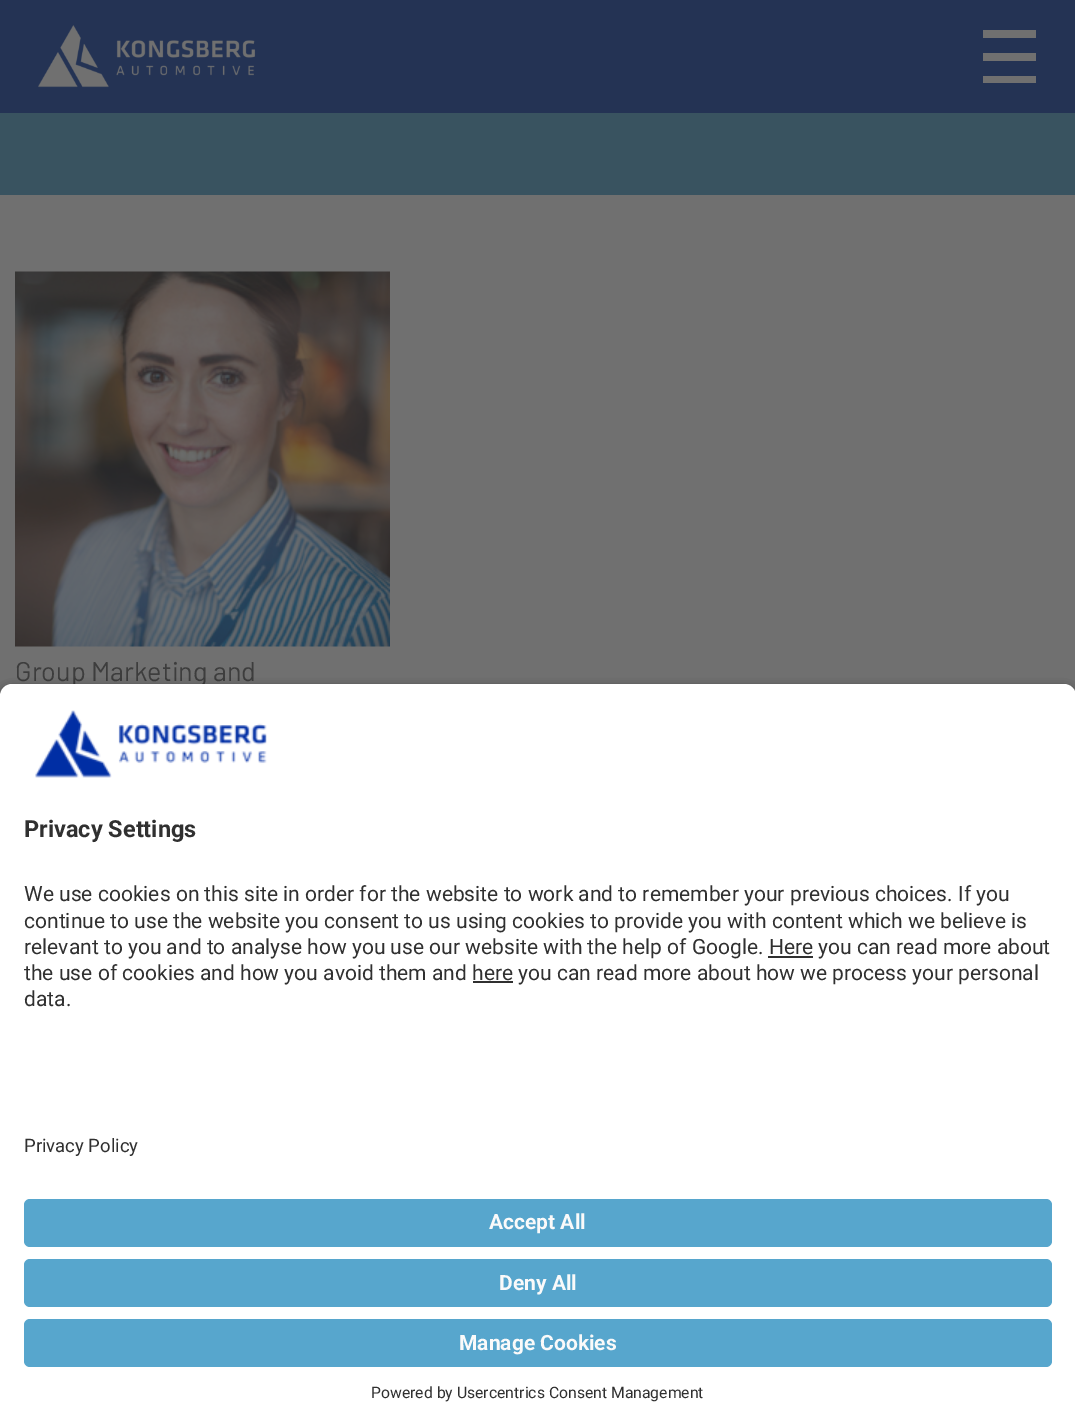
%!PS
<< /PageSize [1075 1426] /PageUsesTransparency true >> setpagedevice
/m/moveto load def
/l/rlineto load def
/c/rcurveto load def
/z/closepath load def
/f/fill load def
/q/gsave load def
/Q_/grestore load def
/C { dup -16 bitshift 255 div exch dup -8 bitshift 255 and 255 div exch 255 and 255 div setrgbcolor } def
/F { [ exch dup neg 0 0 3 -1 roll 0 0 ] selectfont } def
/T { moveto show } def
/R { rectfill } def
/A { dup .setfillconstantalpha .setstrokeconstantalpha } def
/Q { 5 dict begin { /r /h /w /y /x } { exch def } forall
  x r add y moveto x w add y 2 copy h add r arct x w add y h add x 1 index r arct
  x y h add x y r arct x y 2 copy exch w add exch r arct closepath end } def
/S { 12 dict begin { /a /b /q /h /w /y /x } { exch def } forall gsave /was 0 def
  9 -2 -9 { dup b mul 4 div /e exch def 1 sub .425 mul 2.718 exch exp 1 add a .99 .min exch div /now exch def
    1 1 now sub 1 was sub div sub A /was now def
    w h .min e 2 mul add 0 gt { x e sub y e sub w e 2 mul add h e 2 mul add
      q e add b .6 mul add w h .min 2 div e add .min 0 .max Q fill } if } for grestore end } def
/I { 5 dict begin { /h /w /y /x /name } { exch def } forall
  gsave x y translate w h scale
  w h 8 [w 0 0 h 0 0] name (r) file false 3 colorimage grestore end } def
0 .pushpdf14devicefilter
0 1426 translate 1 -1 scale
4 setmiterlimit
16#707070 C
0 0 1075 1426 R
16#243354 C
0 0 1075 113 R
(1.rgb) 38 25 218 63 I
q
983 30 54 53 rectclip
16#707070 C
983 76 m 53 0 l 0 8 l -53 0 l z 983 61 m 53 0 l 0 -8 l -53 0 l z 983 30 m 0 8 l 53 0 l 0 -8 l z f
Q_
16#395360 C
0 113 1075 82 R
(2.rgb) 15 271 375 376 I
/Barlow-Regular 27 F
16#3D3D3D C
(Group Marketing and) 15 681 T
16#000000 C
0 689 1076 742 12 5 .8 S
16#FFFFFF C
12 684 m 1052 0 l 6.5 0 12 5.5 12 12 c 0 416 l -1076 0 l 0 -416 l 0 -6.5 5.5 -12 12 -12 c z f
(3.rgb) 35 710 232 68 I
/Roboto-Bold 23.5 F
16#303030 C
(Privacy Settings) 24 837 T
/Roboto-Regular 21 F
(We use cookies on this site in order for the website to work and to remember your previous choices. If you) 24 901 T
(continue to use the website you consent to us using cookies to provide you with content which we believe is) 24 928 T
(relevant to you and to analyse how you use our website with the help of Google. Here you can read more about) 24 954 T
768 956 45 2 R
(the use of cookies and how you avoid them and here you can read more about how we process your personal) 24 980 T
473 981 40 2 R
(data.) 24 1006 T
16#FFFFFF C
0 1112 1075 314 R
/Roboto-Regular 18.5 F
16#303030 C
(Privacy Policy) 24 1152 T
16#57A6CD C
24 1199 1028 48 6 Q f
/Roboto-Bold 21 F
16#FAFAFA C
(Accept All) 489 1229 T
16#57A6CD C
24 1259 1028 48 6 Q f
16#FAFAFA C
(Deny All) 499 1290 T
16#57A6CD C
24 1319 1028 48 6 Q f
16#FAFAFA C
(Manage Cookies) 459 1350 T
/Roboto-Regular 15.75 F
16#303030 C
(Powered by Usercentrics Consent Management) 371 1398 T
.poppdf14devicefilter showpage
